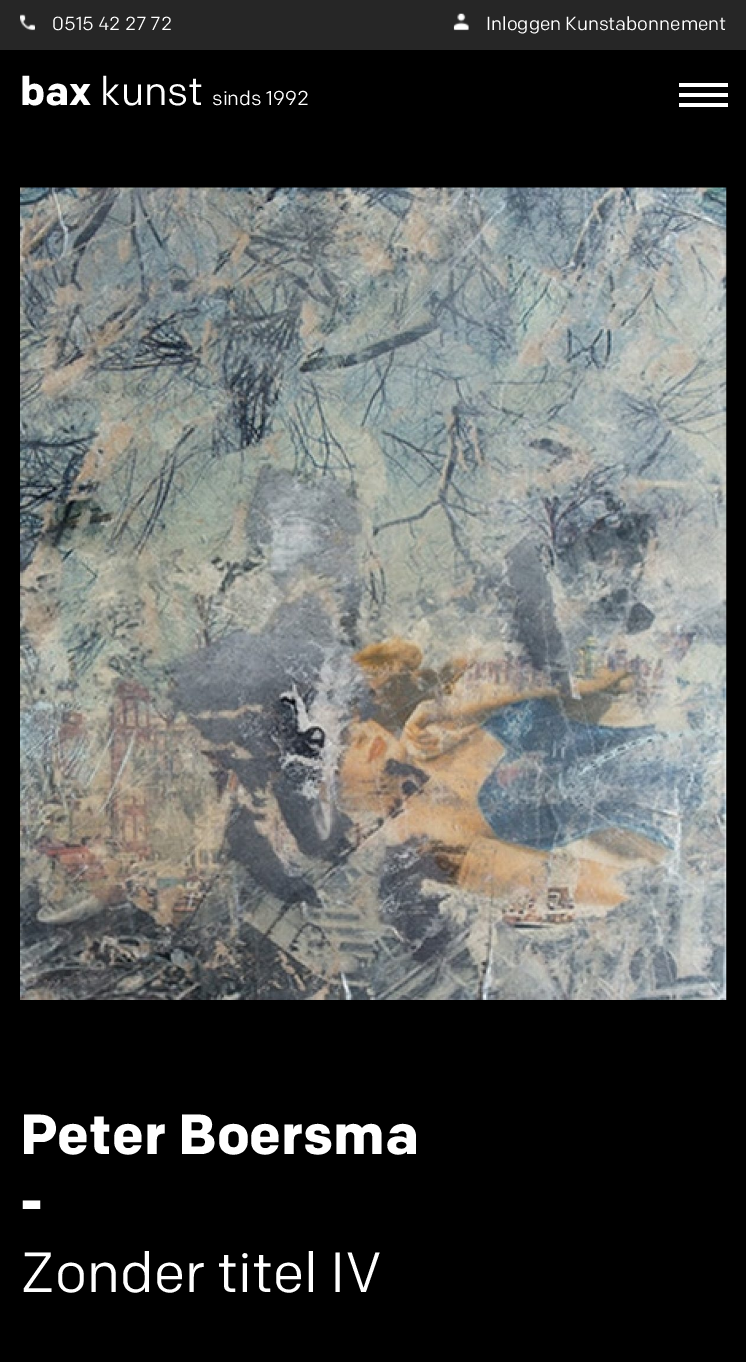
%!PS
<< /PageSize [746 1362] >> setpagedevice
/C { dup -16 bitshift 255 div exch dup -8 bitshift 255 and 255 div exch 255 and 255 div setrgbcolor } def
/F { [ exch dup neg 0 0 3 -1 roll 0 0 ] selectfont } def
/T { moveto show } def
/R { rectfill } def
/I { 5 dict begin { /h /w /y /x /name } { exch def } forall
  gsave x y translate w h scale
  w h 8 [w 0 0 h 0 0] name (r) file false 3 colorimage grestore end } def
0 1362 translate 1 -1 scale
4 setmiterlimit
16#000000 C
0 0 746 1362 R
16#262626 C
0 0 746 50 R
(1.rgb) 20 14 15 17 I
/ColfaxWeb-Regular 18.75 F
16#FFFFFF C
(0515 42 27 72) 52 30 T
(2.rgb) 453 13 16 18 I
(Inloggen Kunstabonnement) 486 30 T
/ColfaxWeb-Bold 40 F
(bax) 20 105 T
/ColfaxWeb-Regular 40 F
(kunst) 100 105 T
/ColfaxWeb-Regular 20 F
(sinds 1992) 212 105 T
679 93 49 4 R
679 83 49 4 R
679 103 49 4 R
(3.rgb) 20 187 707 813 I
/ColfaxWeb-Bold 56.25 F
(Peter Boersma) 20 1154 T
(-) 20 1223 T
/ColfaxWeb-Regular 56.25 F
(Zonder titel IV) 20 1292 T
showpage
